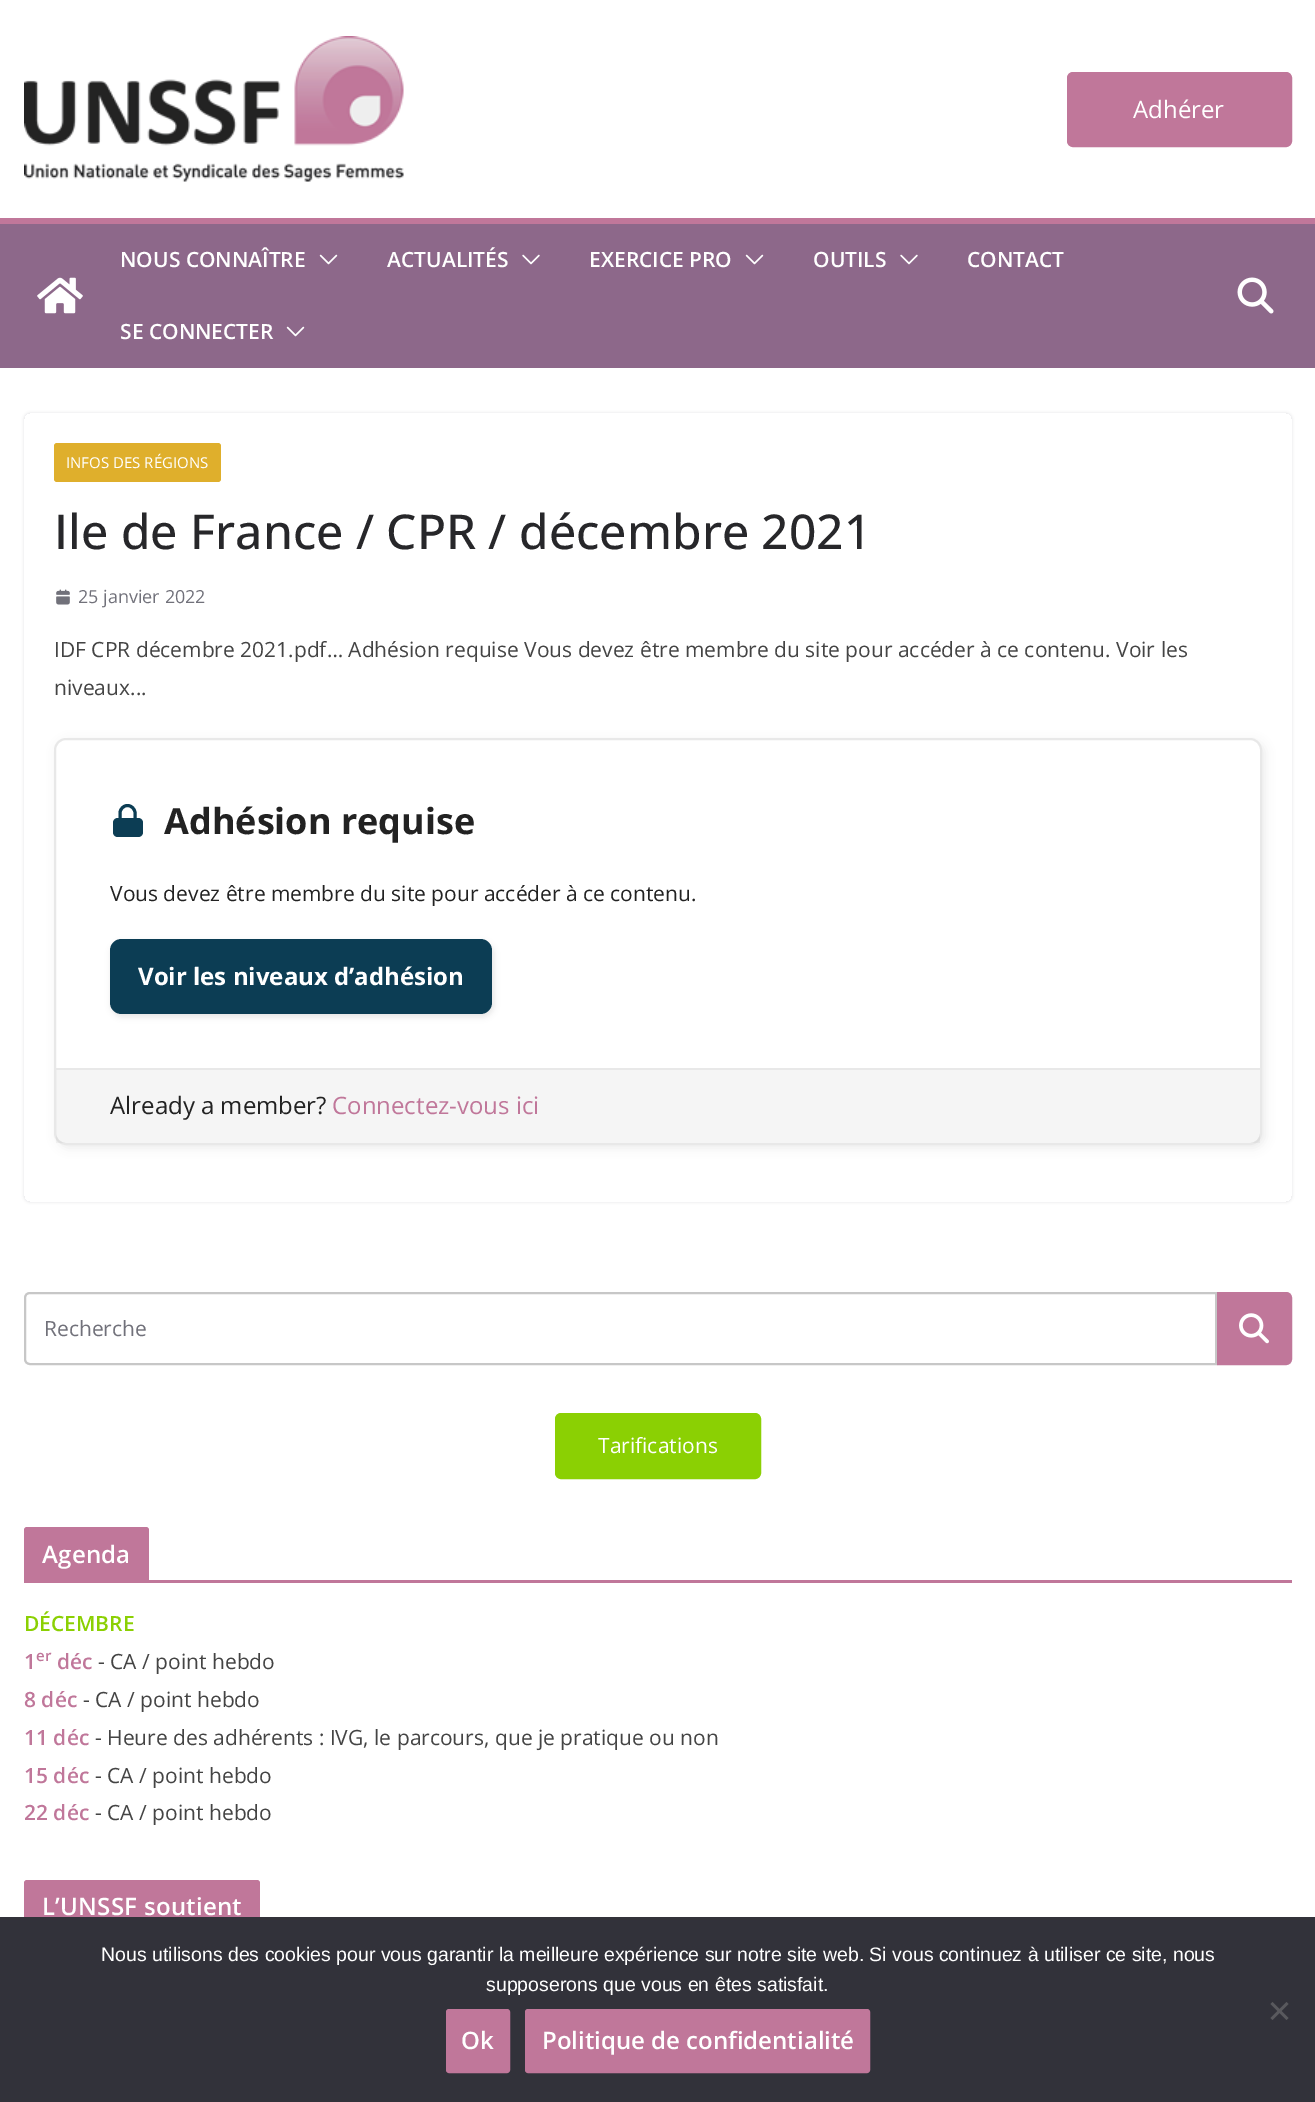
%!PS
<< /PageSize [1315 2102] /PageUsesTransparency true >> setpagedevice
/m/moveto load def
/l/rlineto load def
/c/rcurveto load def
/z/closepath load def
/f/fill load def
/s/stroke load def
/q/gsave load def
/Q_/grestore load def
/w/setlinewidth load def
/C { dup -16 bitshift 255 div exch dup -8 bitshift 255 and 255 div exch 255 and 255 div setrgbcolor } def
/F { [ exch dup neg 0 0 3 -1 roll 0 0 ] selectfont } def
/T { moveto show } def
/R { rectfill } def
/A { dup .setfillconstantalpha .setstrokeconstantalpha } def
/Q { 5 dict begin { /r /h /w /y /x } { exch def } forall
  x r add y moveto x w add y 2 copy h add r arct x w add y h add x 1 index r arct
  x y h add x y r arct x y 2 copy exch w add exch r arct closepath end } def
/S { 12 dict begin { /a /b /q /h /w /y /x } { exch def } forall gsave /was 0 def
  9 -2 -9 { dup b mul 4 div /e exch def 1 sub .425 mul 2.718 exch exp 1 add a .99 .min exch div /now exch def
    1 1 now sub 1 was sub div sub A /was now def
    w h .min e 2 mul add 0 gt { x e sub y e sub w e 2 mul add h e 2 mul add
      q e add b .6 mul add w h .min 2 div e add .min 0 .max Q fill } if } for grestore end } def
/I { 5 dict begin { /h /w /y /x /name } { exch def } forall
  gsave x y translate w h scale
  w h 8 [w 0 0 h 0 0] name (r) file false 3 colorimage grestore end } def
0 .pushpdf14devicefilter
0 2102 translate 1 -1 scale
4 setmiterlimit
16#FFFFFF C
0 0 1315 2102 R
(1.rgb) 24 36 380 146 I
16#C0779A C
1068 73 223 73 5 Q q f Q_
2 w
s
/OpenSans-Regular 24 F
16#FFFFFF C
(Adhérer) 1133 118 T
16#8D688A C
0 224 1315 144 R
16#C0779A C
0 218 1315 6 R
(2.rgb) 37 277 46 37 I
/OpenSans-SemiBold 21 F
16#FFFFFF C
(NOUS CONNAÎTRE) 120 267 T
(3.rgb) 319 254 19 11 I
(ACTUALITÉS) 387 267 T
(4.rgb) 522 254 18 11 I
(EXERCICE PRO) 589 267 T
(3.rgb) 745 254 19 11 I
(OUTILS) 813 267 T
(4.rgb) 900 254 18 11 I
(CONTACT) 967 267 T
(SE CONNECTER) 120 339 T
(3.rgb) 286 326 19 11 I
(5.rgb) 1237 277 37 37 I
q
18 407 m 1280 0 l 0 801 l -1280 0 l z 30 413 m 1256 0 l 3.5 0 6 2.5 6 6 c 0 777 l 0 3.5 -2.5 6 -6 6 c -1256 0 l -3.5 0 -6 -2.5 -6 -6 c 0 -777 l 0 -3.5 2.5 -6 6 -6 c z eoclip newpath
16#E4E4E7 C
24 413 1268 789 6 1.5 1 S
Q_
16#DFAF2C C
54 443 167 39 3 Q f
/OpenSans-Regular 15 F
16#FFFFFF C
(INFOS DES RÉGIONS) 66 468 T
/OpenSans-Medium 48 F
16#27272A C
(Ile de France / CPR / décembre 2021) 54 549 T
(6.rgb) 56 589 14 16 I
/OpenSans-Regular 18 F
16#71717A C
(25 janvier 2022) 78 603 T
/OpenSans-Regular 21 F
16#444444 C
(IDF CPR décembre 2021.pdf… Adhésion requise Vous devez être membre du site pour accéder à ce contenu. Voir les) 54 657 T
(niveaux...) 54 695 T
16#000000 C
57 741 1208 407 12 5 .07 S
16#FFFFFF C
55 739 1206 405 11 Q q f Q_
16#E8E8E8 C
s
16#0C3D54 C
118 818 m 20 0 l 3 0 5 2 5 5 c 0 9 l 0 3 -2 5 -5 5 c -20 0 l -3 0 -5 -2 -5 -5 c 0 -9 l 0 -3 2 -5 5 -5 c z f
3 w
1 setlinecap
1 setlinejoin
120 819 m 0 -6 l 0 -4 3.5 -7.5 7.5 -7.5 c 4 0 7.5 3.5 7.5 7.5 c 0 6 l s
/OpenSans-Bold 36 F
16#222222 C
(Adhésion requise) 164 834 T
/OpenSans-Regular 21 F
(Vous devez être membre du site pour accéder à ce contenu.) 110 901 T
16#000000 C
111 942 383 75 12 3 .1 S
16#0C3D54 C
122 939 m 358 0 l 7 0 12 5 12 12 c 0 51 l 0 7 -5 12 -12 12 c -358 0 l -7 0 -12 -5 -12 -12 c 0 -51 l 0 -7 5 -12 12 -12 c z f
/OpenSans-Bold 24 F
16#FFFFFF C
(Voir les niveaux d’adhésion) 138 985 T
0.04 A
16#000000 C
56 1070 1204 73 R
1 A
16#E8E8E8 C
56 1068 1204 2 R
/OpenSans-Regular 24 F
16#222222 C
(Already a member?) 110 1114 T
16#C0779A C
(Connectez-vous ici) 332 1114 T
16#C7C7C7 C
2 w
0 setlinecap
0 setlinejoin
30 1293 m 1186 0 l 0 71 l -1186 0 l -3 0 -5 -2 -5 -5 c 0 -61 l 0 -3 2 -5 5 -5 c z s
/OpenSans-Regular 21 F
16#71717A C
(Recherche) 44 1336 T
16#C0779A C
1218 1293 m 68 0 l 3 0 5 2 5 5 c 0 61 l 0 3 -2 5 -5 5 c -68 0 l z q f Q_
s
(7.rgb) 1239 1313 30 31 I
16#8BD003 C
556 1414 204 64 5 Q q f Q_
s
16#FFFFFF C
(Tarifications) 598 1453 T
16#C0779A C
24 1580 1268 3 R
27 1527 m 119 0 l 1.5 0 3 1.5 3 3 c 0 50 l -125 0 l 0 -50 l 0 -1.5 1.5 -3 3 -3 c z f
/OpenSans-SemiBold 24 F
16#FFFFFF C
42 1563 m .25 0 (Agenda) ashow
/OpenSans-SemiBold 21 F
16#8BD003 C
(DÉCEMBRE) 24 1631 T
16#C0779A C
(1) 24 1669 T
/OpenSans-SemiBold 15 F
(er) 36 1661 T
/OpenSans-SemiBold 21 F
(déc) 57 1669 T
/OpenSans-Regular 21 F
16#444444 C
(- CA / point hebdo) 98 1669 T
/OpenSans-SemiBold 21 F
16#C0779A C
(8 déc) 24 1707 T
/OpenSans-Regular 21 F
16#444444 C
(- CA / point hebdo) 83 1707 T
/OpenSans-SemiBold 21 F
16#C0779A C
(11 déc) 24 1745 T
/OpenSans-Regular 21 F
16#444444 C
(- Heure des adhérents : IVG, le parcours, que je pratique ou non) 95 1745 T
/OpenSans-SemiBold 21 F
16#C0779A C
(15 déc) 24 1783 T
/OpenSans-Regular 21 F
16#444444 C
(- CA / point hebdo) 95 1783 T
/OpenSans-SemiBold 21 F
16#C0779A C
(22 déc) 24 1820 T
/OpenSans-Regular 21 F
16#444444 C
(- CA / point hebdo) 95 1820 T
16#C0779A C
27 1880 m 230 0 l 1.5 0 3 1.5 3 3 c 0 49 l -236 0 l 0 -49 l 0 -1.5 1.5 -3 3 -3 c z f
/OpenSans-SemiBold 24 F
16#FFFFFF C
42 1915 m .25 0 (L’UNSSF soutient) ashow
16#32323A C
0 1917 1315 185 R
/LiberationSans-Regular 19.5 F
16#FFFFFF C
(Nous utilisons des cookies pour vous garantir la meilleure expérience sur notre site web. Si vous continuez à utiliser ce site, nous) 101 1961 T
(supposerons que vous en êtes satisfait.) 486 1991 T
16#59595D C
1286.5 2002 m 2 2 l -16 16 l -2 -2 l z f
1270.5 2004 m 2 -2 l 16 16 l -2 2 l z f
16#C0779A C
447 2010 62 62 2 Q q f Q_
s
/OpenSans-SemiBold 24 F
16#FFFFFF C
(Ok) 461 2049 T
16#C0779A C
526 2010 343 62 2 Q q f Q_
s
16#FFFFFF C
(Politique de confidentialité) 542 2049 T
.poppdf14devicefilter showpage
